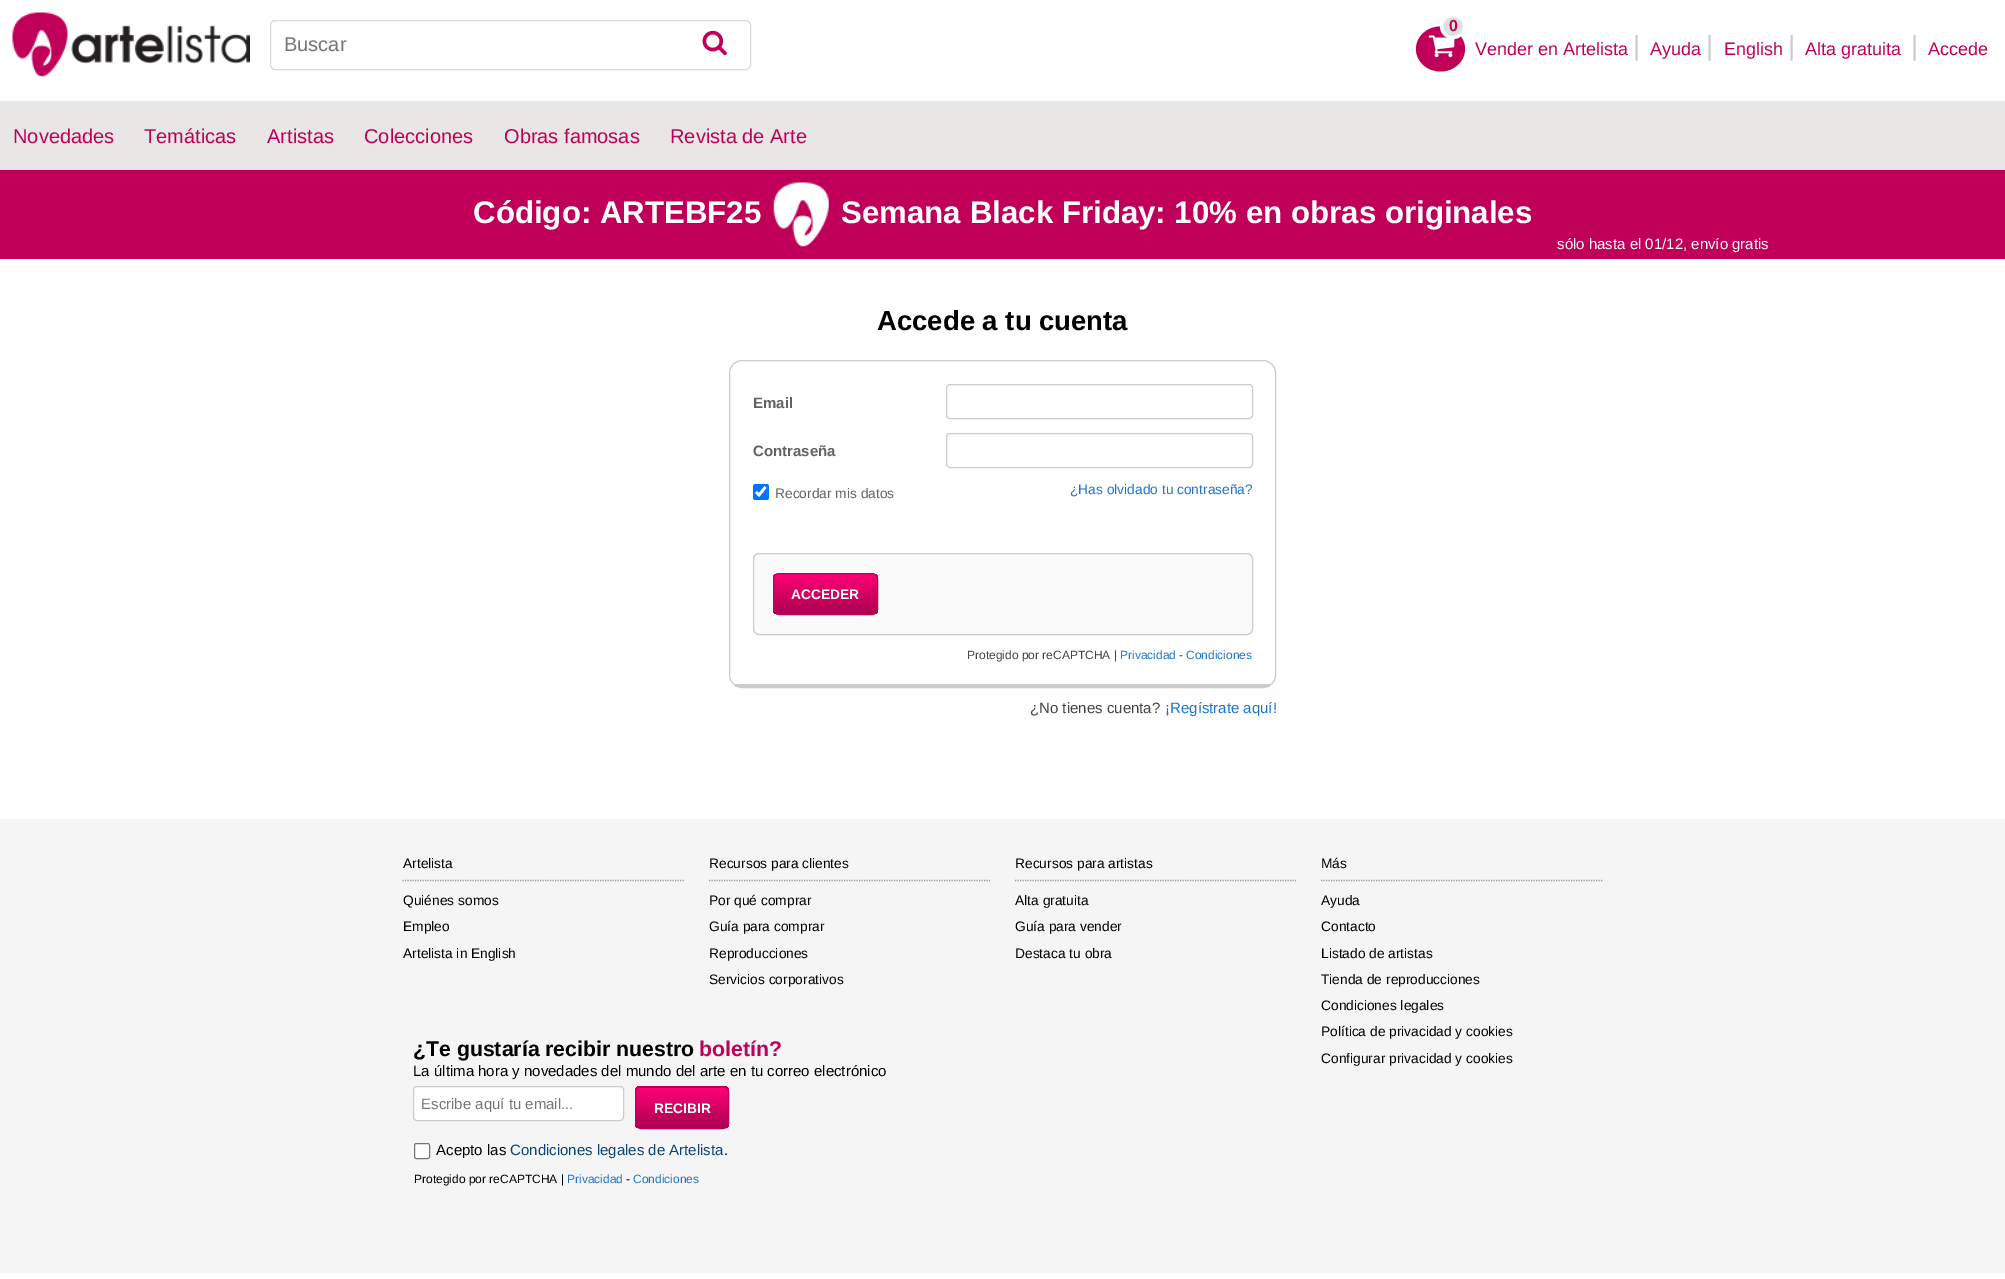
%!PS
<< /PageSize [2005 1279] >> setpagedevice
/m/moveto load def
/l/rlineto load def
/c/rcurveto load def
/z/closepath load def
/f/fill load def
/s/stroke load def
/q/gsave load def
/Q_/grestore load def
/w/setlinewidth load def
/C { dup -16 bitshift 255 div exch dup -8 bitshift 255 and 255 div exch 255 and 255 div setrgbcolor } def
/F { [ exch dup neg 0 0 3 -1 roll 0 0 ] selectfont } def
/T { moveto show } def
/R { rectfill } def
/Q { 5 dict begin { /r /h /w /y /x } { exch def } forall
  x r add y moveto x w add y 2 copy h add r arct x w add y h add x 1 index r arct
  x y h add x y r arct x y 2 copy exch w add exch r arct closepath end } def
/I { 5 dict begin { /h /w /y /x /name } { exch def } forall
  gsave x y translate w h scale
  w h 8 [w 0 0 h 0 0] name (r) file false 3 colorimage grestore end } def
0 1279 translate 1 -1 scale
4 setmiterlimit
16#FFFFFF C
0 0 2005 1279 R
(1.rgb) 12 12 238 65 I
16#DADADA C
270.5 20.5 480 49 4.5 Q s
/LiberationSans-Regular 20 F
16#757575 C
(Buscar) 284 51 T
(2.rgb) 702 30 25 25 I
16#C00058 C
1440.5 26.5 m 13.5 0 24.5 10 24.5 22.5 c 0 12.5 -11 22.5 -24.5 22.5 c -13.5 0 -24.5 -10 -24.5 -22.5 c 0 -12.5 11 -22.5 24.5 -22.5 c z f
(3.rgb) 1428 35 27 23 I
16#E0E0E0 C
1441.5 15.5 23 22 11 Q q f Q_
16#FFFFFF C
3 w
s
/LiberationSans-Bold 16 F
16#C00058 C
(0) 1449 31 T
/LiberationSans-Regular 18 F
(Vender en Artelista) 1475 55 T
/LiberationSans-Regular 27.5 F
16#CCCCCC C
(|) 1633 55 T
/LiberationSans-Regular 18 F
16#C00058 C
(Ayuda) 1650 55 T
/LiberationSans-Regular 27.5 F
16#CCCCCC C
(|) 1706 55 T
/LiberationSans-Regular 18 F
16#C00058 C
(English) 1724 55 T
/LiberationSans-Regular 27.5 F
16#CCCCCC C
(|) 1788 55 T
/LiberationSans-Regular 18 F
16#C00058 C
(Alta gratuita) 1805 55 T
/LiberationSans-Regular 27.5 F
16#CCCCCC C
(|) 1911 55 T
/LiberationSans-Regular 18 F
16#C00058 C
(Accede) 1928 55 T
16#E9E6E6 C
0 101 2005 69 R
/LiberationSans-Regular 20 F
16#C00058 C
(Novedades) 13 143 T
(Temáticas) 144 143 T
(Artistas) 267 143 T
(Colecciones) 364 143 T
(Obras famosas) 504 143 T
(Revista de Arte) 670 143 T
0 170 2005 89 R
/LiberationSans-Bold 31.25 F
16#FFFFFF C
(Código: ARTEBF25) 473 223 T
(4.rgb) 773 182 56 65 I
(Semana Black Friday: 10% en obras originales) 841 223 T
/LiberationSans-Regular 15 F
(sólo hasta el 01/12, envío gratis) 1557 249 T
/LiberationSans-Bold 27.5 F
16#000000 C
(Accede a tu cuenta) 877 330 T
16#CCCCCC C
1 w
729.5 360.5 546 327 12.5 Q s
735 684 535 3 R
/LiberationSans-Bold 15 F
16#626262 C
(Email) 753 408 T
16#CCCCCC C
946.5 384.5 306 34 3.5 Q s
16#626262 C
(Contraseña) 753 456 T
16#CCCCCC C
946.5 433.5 306 34 3.5 Q s
16#0075FF C
753 484 16 16 2.5 Q f
16#FFFFFF C
2.6 w
756 492 m 3 3 l 6.5 -8 l s
/LiberationSans-Regular 13.75 F
16#626262 C
(Recordar mis datos) 775 498 T
16#1F75CC C
(¿Has olvidado tu contraseña?) 1070 494 T
16#FAFAFA C
753.5 553.5 499 81 5.5 Q q f Q_
16#CCCCCC C
1 w
s
q
773 573 105 42 6 Q clip newpath
q 773 574 m 105 0 l 0 40 l -105 0 l z clip newpath
<< /ShadingType 2 /ColorSpace /DeviceRGB /Coords [825 574 825 614] /Extend [true true] /Function << /FunctionType 2 /Domain [0 1] /C0 [1 0 .459] /C1 [.667 .012 .314] /N 1 >> >> shfill Q_
Q_
16#C00058 C
773.5 573.5 104 41 5.5 Q s
/LiberationSans-Bold 13.75 F
16#FFFFFF C
(ACCEDER) 791 599 T
/LiberationSans-Regular 12 F
16#444444 C
(Protegido por reCAPTCHA |) 967 659 T
16#1F75CC C
(Privacidad) 1120 659 T
16#444444 C
(-) 1179 659 T
16#1F75CC C
(Condiciones) 1186 659 T
/LiberationSans-Regular 15 F
16#444444 C
(¿No tienes cuenta?) 1030 713 T
16#1F75CC C
(¡Regístrate aquí!) 1165 713 T
16#F5F5F5 C
0 819 2005 454 R
16#999999 C
1.2 w
[1.25 1.25] 0 setdash
402.5 880.5 m 281.5 0 l s
/LiberationSans-Regular 13.75 F
16#000000 C
(Artelista) 403 868 T
(Quiénes somos) 403 905 T
(Empleo) 403 931 T
(Artelista in English) 403 958 T
16#999999 C
709 880.5 m 281 0 l s
16#000000 C
(Recursos para clientes) 709 868 T
(Por qué comprar) 709 905 T
(Guía para comprar) 709 931 T
(Reproducciones) 709 958 T
(Servicios corporativos) 709 984 T
16#999999 C
1015 880.5 m 281 0 l s
16#000000 C
(Recursos para artistas) 1015 868 T
(Alta gratuita) 1015 905 T
(Guía para vender) 1015 931 T
(Destaca tu obra) 1015 958 T
16#999999 C
1321 880.5 m 281.5 0 l s
16#000000 C
(Más) 1321 868 T
(Ayuda) 1321 905 T
(Contacto) 1321 931 T
(Listado de artistas) 1321 958 T
(Tienda de reproducciones) 1321 984 T
(Condiciones legales) 1321 1010 T
(Política de privacidad y cookies) 1321 1036 T
(Configurar privacidad y cookies) 1321 1063 T
/LiberationSans-Bold 21.25 F
(¿Te gustaría recibir nuestro) 413 1056 T
16#C00058 C
(boletín?) 699 1056 T
/LiberationSans-Regular 15 F
16#000000 C
(La última hora y novedades del mundo del arte en tu correo electrónico) 413 1076 T
16#FFFFFF C
413.5 1086.5 210 34 3.5 Q q f Q_
16#CCCCCC C
1 w
[] 0 setdash
s
16#757575 C
(Escribe aquí tu email...) 421 1109 T
q
635 1086 94 43 6 Q clip newpath
q 635 1086 m 94 0 l 0 2 l -94 0 l z clip newpath
<< /ShadingType 2 /ColorSpace /DeviceRGB /Coords [682 1048 682 1088] /Extend [true true] /Function << /FunctionType 2 /Domain [0 1] /C0 [1 0 .459] /C1 [.667 .012 .314] /N 1 >> >> shfill Q_
q 635 1088 m 94 0 l 0 40 l -94 0 l z clip newpath
<< /ShadingType 2 /ColorSpace /DeviceRGB /Coords [682 1088 682 1128] /Extend [true true] /Function << /FunctionType 2 /Domain [0 1] /C0 [1 0 .459] /C1 [.667 .012 .314] /N 1 >> >> shfill Q_
Q_
16#C00058 C
635.5 1086.5 93 42 5.5 Q s
/LiberationSans-Bold 13.75 F
16#FFFFFF C
(RECIBIR) 654 1113 T
414.5 1143.5 15 15 2 Q q f Q_
16#767676 C
s
/LiberationSans-Regular 15 F
16#000000 C
(Acepto las) 436 1155 T
16#0B437B C
(Condiciones legales de Artelista) 510 1155 T
16#000000 C
(.) 724 1155 T
/LiberationSans-Regular 12 F
(Protegido por reCAPTCHA |) 414 1183 T
16#1F75CC C
(Privacidad) 567 1183 T
16#000000 C
(-) 626 1183 T
16#1F75CC C
(Condiciones) 633 1183 T
showpage
